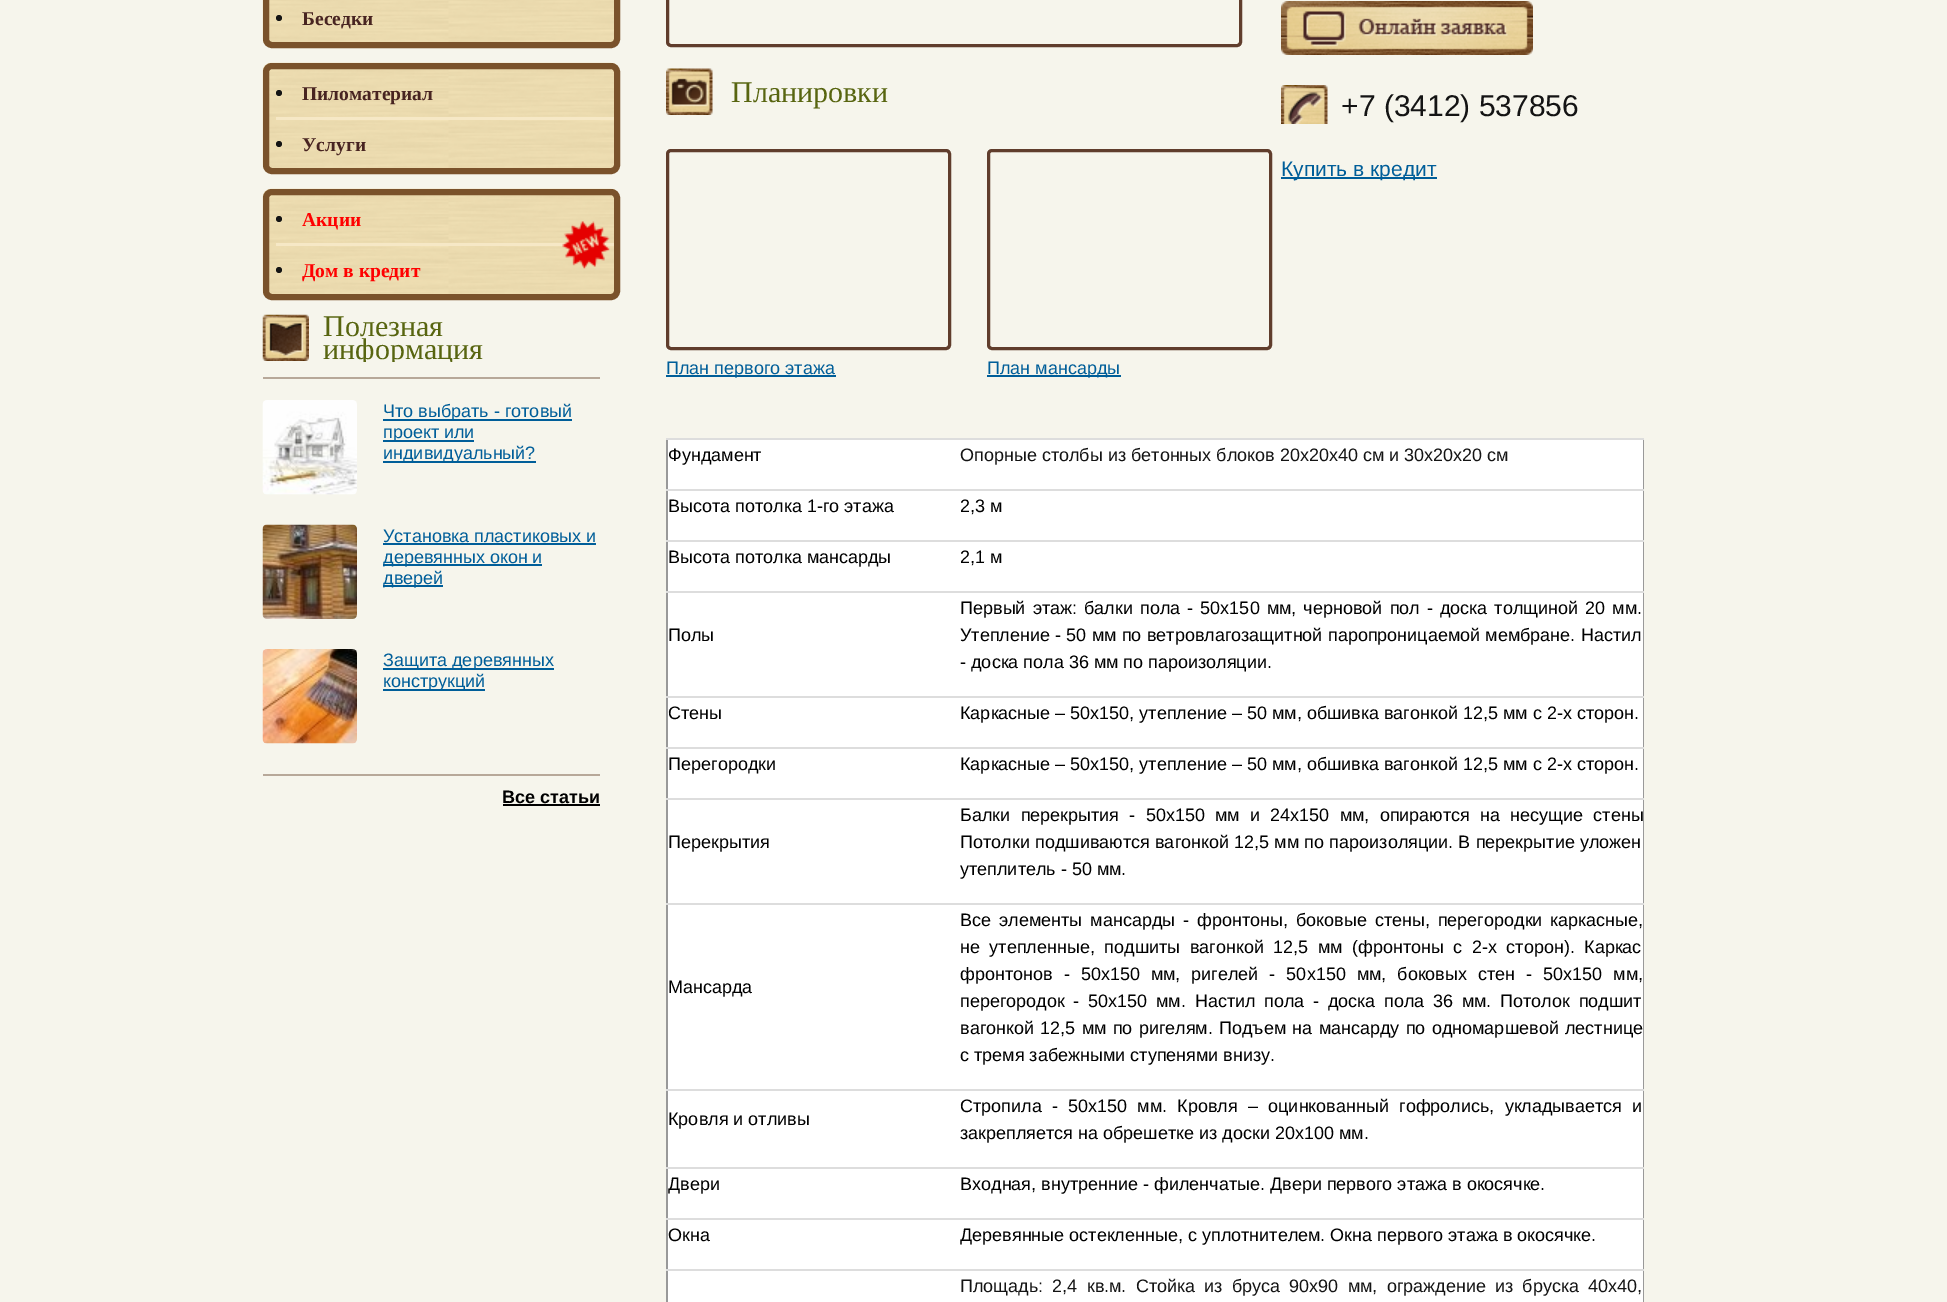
%!PS
<< /PageSize [1947 1302] >> setpagedevice
/m/moveto load def
/f/fill load def
/s/stroke load def
/q/gsave load def
/Q_/grestore load def
/w/setlinewidth load def
/C { dup -16 bitshift 255 div exch dup -8 bitshift 255 and 255 div exch 255 and 255 div setrgbcolor } def
/F { [ exch dup neg 0 0 3 -1 roll 0 0 ] selectfont } def
/T { moveto show } def
/R { rectfill } def
/O { newpath 0 360 arc closepath } def
/Q { 5 dict begin { /r /h /w /y /x } { exch def } forall
  x r add y moveto x w add y 2 copy h add r arct x w add y h add x 1 index r arct
  x y h add x y r arct x y 2 copy exch w add exch r arct closepath end } def
/I { 5 dict begin { /h /w /y /x /name } { exch def } forall
  gsave x y translate w h scale
  w h 8 [w 0 0 h 0 0] name (r) file false 3 colorimage grestore end } def
0 1302 translate 1 -1 scale
4 setmiterlimit
16#F6F5EC C
0 0 1947 1302 R
(1.rgb) 262 0 358 48 I
16#7A522B C
6 w
266 -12 351 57 6 Q s
16#141414 C
279 18 3 O f
/LiberationSerif-Bold 19.5 F
16#482421 C
(Беседки) 302 25 T
(2.rgb) 262 62 358 112 I
16#7A522B C
266 66 351 105 6 Q s
16#F6E8C6 C
276 117 338 3 R
16#141414 C
279 93 3 O f
16#482421 C
(Пиломатериал) 302 100 T
16#141414 C
279 144 3 O f
16#482421 C
(Услуги) 302 151 T
(2.rgb) 262 188 358 112 I
16#7A522B C
266 192 351 105 6 Q s
16#F6E8C6 C
276 243 338 3 R
16#141414 C
279 219 3 O f
16#FF0000 C
(Акции) 302 226 T
(3.rgb) 562 221 48 48 I
16#141414 C
279 270 3 O f
16#FF0000 C
(Дом в кредит) 302 277 T
(4.rgb) 262 314 47 47 I
/LiberationSerif-Regular 30 F
16#586510 C
(Полезная) 323 336 T
q
263 315 337 47 rectclip
(информация) 323 359 T
Q_
16#B7A899 C
263 377 337 2 R
263 774 337 2 R
(5.rgb) 262 400 95 95 I
16#005E99 C
383 419 189 2 R
/LiberationSans-Regular 18 F
(Что выбрать - готовый) 383 417 T
383 440 91 2 R
(проект или) 383 438 T
383 461 153 2 R
(индивидуальный?) 383 459 T
(6.rgb) 262 524 95 95 I
(Установка пластиковых и) 383 542 T
383 543 213 2 R
383 564 159 2 R
(деревянных окон и) 383 563 T
383 585 60 2 R
(дверей) 383 584 T
(7.rgb) 262 649 95 95 I
383 668 171 2 R
(Защита деревянных) 383 666 T
383 689 102 2 R
(конструкций) 383 687 T
/LiberationSans-Bold 18 F
16#000000 C
(Все статьи) 502 803 T
503 804 97 2 R
16#603D2C C
3 w
667.5 -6.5 573 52 3.5 Q s
(8.rgb) 666 68 47 47 I
/LiberationSerif-Regular 30 F
16#586510 C
(Планировки) 731 102 T
16#603D2C C
667.5 150.5 282 198 3.5 Q s
16#005E99 C
666 375 170 2 R
/LiberationSans-Regular 18 F
(План первого этажа) 666 374 T
16#603D2C C
988.5 150.5 282 198 3.5 Q s
16#005E99 C
987 375 134 2 R
(План мансарды) 987 374 T
(9.rgb) 1281 1 252 54 I
(10.rgb) 1281 85 47 39 I
/LiberationSans-Regular 30 F
16#141414 C
(+7 \(3412\) 537856) 1341 116 T
16#005E99 C
1281 177 156 2 R
/LiberationSans-Regular 21 F
(Купить в кредит) 1281 176 T
16#FFFFFF C
668 440 975 862 R
16#999999 C
1643 438 1 864 R
666 438 2 864 R
/LiberationSans-Regular 18 F
16#000000 C
(Фундамент) 668 461 T
16#DDDDDD C
666 438 978 2 R
666 489 978 2 R
16#141414 C
(Опорные столбы из бетонных блоков 20х20х40 см и 30х20х20 см) 960 461 T
16#000000 C
(Высота потолка 1-го этажа) 668 512 T
16#DDDDDD C
666 540 978 2 R
16#000000 C
(2,3 м) 960 512 T
(Высота потолка мансарды) 668 563 T
16#DDDDDD C
666 591 978 2 R
16#000000 C
(2,1 м) 960 563 T
(Полы) 668 641 T
16#DDDDDD C
666 696 978 2 R
16#000000 C
960 614 m 2.1 0 32 (Первый этаж: балки пола - 50х150 мм, черновой пол - доска толщиной 20 мм.) widthshow
960 641 m .25 0 32 (Утепление - 50 мм по ветровлагозащитной паропроницаемой мембране. Настил) widthshow
(- доска пола 36 мм по пароизоляции.) 960 668 T
(Стены) 668 719 T
16#DDDDDD C
666 747 978 2 R
16#000000 C
(Каркасные – 50х150, утепление – 50 мм, обшивка вагонкой 12,5 мм с 2-х сторон.) 960 719 T
(Перегородки) 668 770 T
16#DDDDDD C
666 798 978 2 R
16#000000 C
(Каркасные – 50х150, утепление – 50 мм, обшивка вагонкой 12,5 мм с 2-х сторон.) 960 770 T
(Перекрытия) 668 848 T
16#DDDDDD C
666 903 978 2 R
16#000000 C
960 821 m 5.25 0 32 (Балки перекрытия - 50х150 мм и 24х150 мм, опираются на несущие стены) widthshow
960 848 m .25 0 32 (Потолки подшиваются вагонкой 12,5 мм по пароизоляции. В перекрытие уложен) widthshow
(утеплитель - 50 мм.) 960 875 T
(Мансарда) 668 993 T
16#DDDDDD C
666 1089 978 2 R
16#000000 C
960 926 m 3 0 32 (Все элементы мансарды - фронтоны, боковые стены, перегородки каркасные,) widthshow
960 953 m 4.5 0 32 (не утепленные, подшиты вагонкой 12,5 мм \(фронтоны с 2-х сторон\). Каркас) widthshow
960 980 m 6 0 32 (фронтонов - 50х150 мм, ригелей - 50х150 мм, боковых стен - 50х150 мм,) widthshow
960 1007 m 3.75 0 32 (перегородок - 50х150 мм. Настил пола - доска пола 36 мм. Потолок подшит) widthshow
960 1034 m 1.25 0 32 (вагонкой 12,5 мм по ригелям. Подъем на мансарду по одномаршевой лестнице) widthshow
(с тремя забежными ступенями внизу.) 960 1061 T
(Кровля и отливы) 668 1125 T
16#DDDDDD C
666 1167 978 2 R
16#000000 C
960 1112 m 5.25 0 32 (Стропила - 50х150 мм. Кровля – оцинкованный гофролись, укладывается и) widthshow
(закрепляется на обрешетке из доски 20х100 мм.) 960 1139 T
(Двери) 668 1190 T
16#DDDDDD C
666 1218 978 2 R
16#000000 C
(Входная, внутренние - филенчатые. Двери первого этажа в окосячке.) 960 1190 T
(Окна) 668 1241 T
16#DDDDDD C
666 1269 978 2 R
16#000000 C
(Деревянные остекленные, с уплотнителем. Окна первого этажа в окосячке.) 960 1241 T
16#141414 C
960 1292 m 4.25 0 32 (Площадь: 2,4 кв.м. Стойка из бруса 90х90 мм, ограждение из бруска 40х40,) widthshow
showpage
